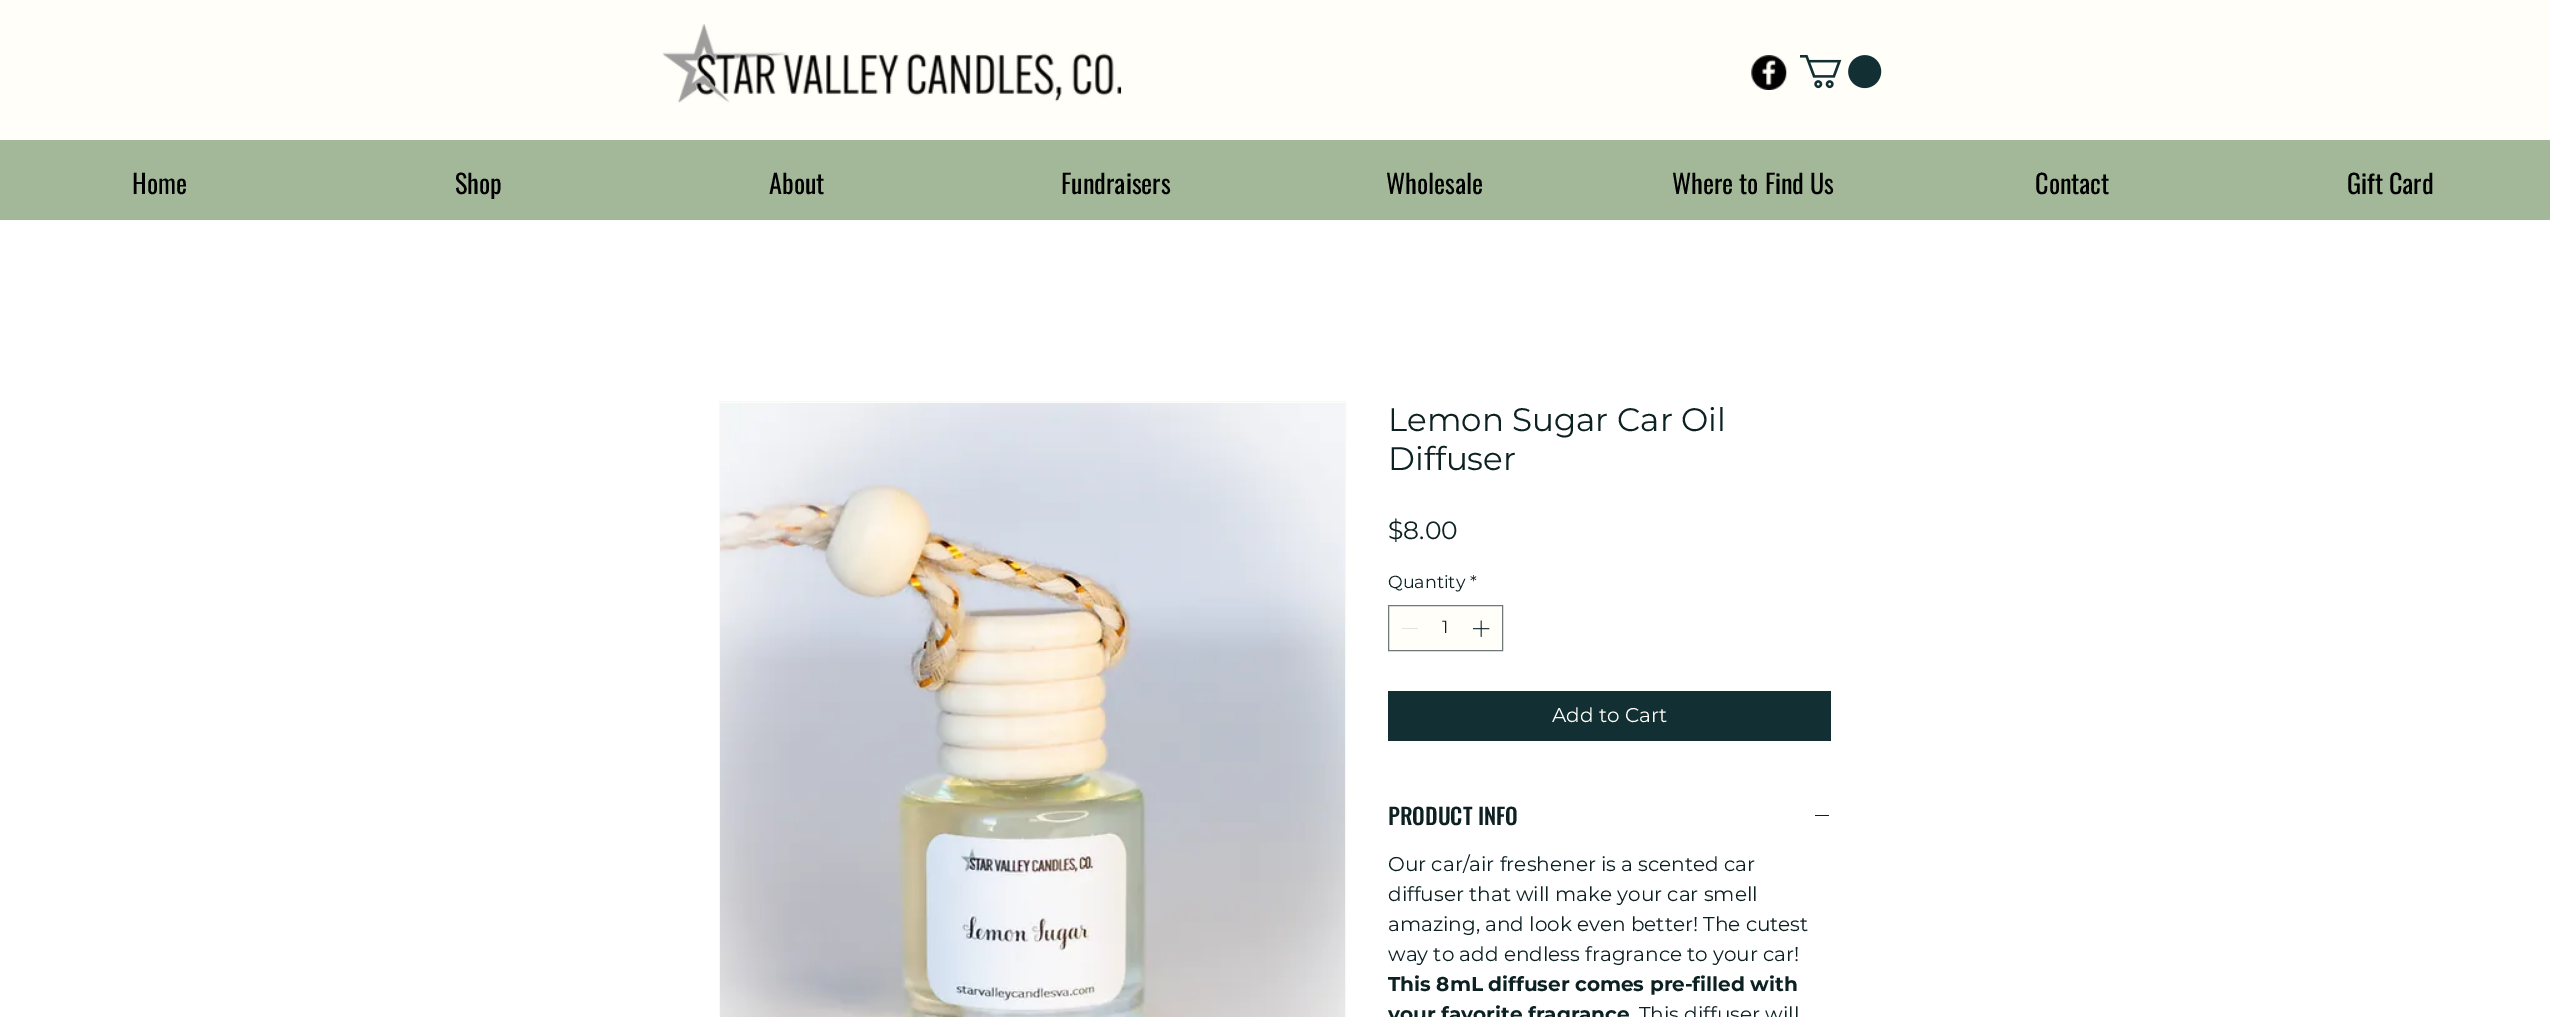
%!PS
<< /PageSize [2550 1017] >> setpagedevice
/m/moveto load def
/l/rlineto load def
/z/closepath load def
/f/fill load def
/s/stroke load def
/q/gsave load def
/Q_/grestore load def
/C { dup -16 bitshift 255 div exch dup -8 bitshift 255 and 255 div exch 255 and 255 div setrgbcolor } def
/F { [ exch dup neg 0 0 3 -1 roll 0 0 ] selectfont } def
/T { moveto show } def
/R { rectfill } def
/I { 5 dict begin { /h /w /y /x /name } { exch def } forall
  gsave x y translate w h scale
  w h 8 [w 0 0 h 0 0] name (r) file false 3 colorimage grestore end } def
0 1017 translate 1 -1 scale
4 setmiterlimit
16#FFFFFF C
0 0 2550 1017 R
16#FFFEF8 C
0 0 2550 140 R
(1.rgb) 662 24 460 79 I
(2.rgb) 1751 55 36 35 I
(3.rgb) 1800 55 82 34 I
16#A3B899 C
0 140 2550 80 R
/Oswald-Regular 26.25 F
16#000000 C
(Home) 132 194 T
(Shop) 455 194 T
(About) 769 194 T
(Fundraisers) 1061 194 T
(Wholesale) 1386 194 T
(Where to Find Us) 1672 194 T
(Contact) 2035 194 T
(Gift Card) 2347 194 T
16#FBF9EB C
719.5 401.5 626 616 rectstroke
(4.rgb) 720 403 625 614 I
/Montserrat-Regular 32.5 F
16#0D2123 C
(Lemon Sugar Car Oil) 1388 431 T
(Diffuser) 1388 470 T
/Montserrat-Regular 25 F
($8.00) 1388 539 T
/Montserrat-Regular 17.5 F
(Quantity) 1388 588 T
(*) 1470 588 T
16#FFFEF8 C
1388.5 605.5 m 114 0 l 0 45 l -114 0 l z q f Q_
16#6E7978 C
s
16#E3E3E0 C
1402 628 16 1 R
16#0D2123 C
(1) 1442 633 T
(5.rgb) 1472 620 18 17 I
16#123033 C
1388 691 443 50 R
/Montserrat-Regular 20 F
16#FFFEF8 C
(Add to Cart) 1552 722 T
/Oswald-Medium 22.5 F
16#0D2123 C
(PRODUCT INFO) 1388 825 T
1815 815 14 1 R
/Montserrat-Regular 20 F
(Our car/air freshener is a scented car) 1388 871 T
(diffuser that will make your car smell) 1388 901 T
(amazing, and look even better! The cutest) 1388 931 T
(way to add endless fragrance to your car!) 1388 961 T
/Montserrat-Bold 20 F
(This 8mL diffuser comes pre-filled with) 1388 991 T
(your favorite fragrance) 1388 1021 T
/Montserrat-Regular 20 F
(This diffuser will) 1639 1021 T
showpage
